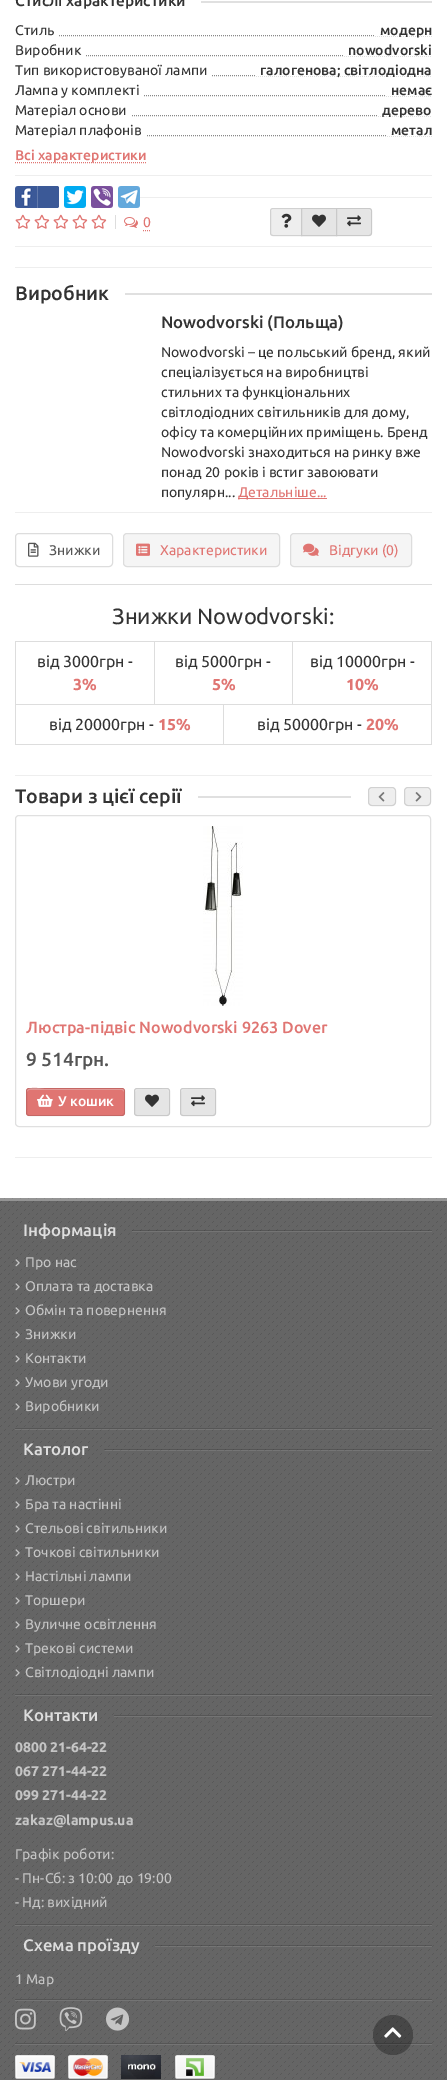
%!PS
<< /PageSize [447 2080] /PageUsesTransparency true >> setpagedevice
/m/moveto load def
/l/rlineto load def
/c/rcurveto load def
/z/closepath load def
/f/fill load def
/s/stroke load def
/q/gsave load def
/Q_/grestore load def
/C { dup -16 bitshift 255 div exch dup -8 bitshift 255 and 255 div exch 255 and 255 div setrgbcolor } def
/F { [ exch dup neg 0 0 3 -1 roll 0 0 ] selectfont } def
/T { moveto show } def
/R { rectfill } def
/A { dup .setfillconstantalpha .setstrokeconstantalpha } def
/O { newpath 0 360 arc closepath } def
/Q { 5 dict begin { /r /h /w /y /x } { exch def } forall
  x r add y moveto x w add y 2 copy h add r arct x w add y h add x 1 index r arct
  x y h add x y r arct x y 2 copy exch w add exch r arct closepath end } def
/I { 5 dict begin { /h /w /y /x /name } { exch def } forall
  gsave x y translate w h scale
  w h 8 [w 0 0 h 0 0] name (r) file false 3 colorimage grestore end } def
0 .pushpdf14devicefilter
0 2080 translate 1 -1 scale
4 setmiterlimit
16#FFFFFF C
0 0 447 2080 R
/Ubuntu-Medium 15.4 F
16#333333 C
(Стислі характеристики) 15 6 T
16#E0E0E0 C
201 1 231 2 R
/Ubuntu-Regular 14 F
16#333333 C
(Стиль) 15 35 T
16#888888 C
[1 1] 0 setdash
59 35.5 m 373 0 l s
16#FFFFFF C
375 35 57 1 R
/Ubuntu-Medium 14 F
16#333333 C
(модерн) 380 35 T
/Ubuntu-Regular 14 F
(Виробник) 15 55 T
16#888888 C
86 55.5 m 346 0 l s
16#FFFFFF C
344 55 87 1 R
/Ubuntu-Medium 14 F
16#333333 C
(nowodvorski) 348 55 T
/Ubuntu-Regular 14 F
(Тип використовуваної лампи) 15 75 T
16#888888 C
212 75.5 m 220 0 l s
16#FFFFFF C
256 75 175 1 R
/Ubuntu-Medium 14 F
16#333333 C
(галогенова; світлодіодна) 260 75 T
/Ubuntu-Regular 14 F
(Лампа у комплекті) 15 95 T
16#888888 C
144 95.5 m 288 0 l s
16#FFFFFF C
386 95 45 1 R
/Ubuntu-Medium 14 F
16#333333 C
(немає) 391 95 T
/Ubuntu-Regular 14 F
(Матеріал основи) 15 115 T
16#888888 C
132 115.5 m 300 0 l s
16#FFFFFF C
378 115 53 1 R
/Ubuntu-Medium 14 F
16#333333 C
(дерево) 382 115 T
/Ubuntu-Regular 14 F
(Матеріал плафонів) 15 135 T
16#888888 C
147 135.5 m 285 0 l s
16#FFFFFF C
387 135 45 1 R
/Ubuntu-Medium 14 F
16#333333 C
(метал) 391 135 T
16#E07572 C
15 162.5 m 132 0 l s
(Всі характеристики) 15 160 T
16#EEEEEE C
15 175 417 1 R
(1.rgb) 15 186 44 22 I
16#3B5997 C
37 186 m 20 0 l 1 0 2 1 2 2 c 0 18 l 0 1 -1 2 -2 2 c -20 0 l z f
16#627AAC C
37 186 1 22 R
(2.rgb) 64 186 22 22 I
(3.rgb) 91 186 22 22 I
(4.rgb) 118 186 22 22 I
16#EEEEEE C
140 197 292 1 R
(5.rgb) 15 214 16 15 I
(5.rgb) 34 214 16 15 I
(5.rgb) 53 214 16 15 I
(5.rgb) 72 214 16 15 I
(5.rgb) 91 214 16 15 I
16#DDDDDD C
115 215 1 14 R
(6.rgb) 124 217 14 11 I
16#E07572 C
143 230.5 m 8 0 l s
/Ubuntu-Regular 14 F
(0) 143 227 T
16#EEEEEE C
273 208 m 29 0 l 0 28 l -29 0 l -1.5 0 -3 -1.5 -3 -3 c 0 -22 l 0 -1.5 1.5 -3 3 -3 c z f
16#F3F3F3 C
273 210 m 28 0 l 0 -1 l -28 0 l -1 0 -2 1 -2 2 c 0 1 l 0 -1 1 -2 2 -2 c z f
0.12 A
16#000000 C
[] 0 setdash
273 208.5 m 28.5 0 l 0 27 l -28.5 0 l -1.5 0 -2.5 -1 -2.5 -2.5 c 0 -22 l 0 -1.5 1 -2.5 2.5 -2.5 c z s
1 A
(7.rgb) 281 213 11 15 I
16#E5E5E5 C
302 210 34 25 R
16#EDEDED C
302 209 34 1 R
16#CACACA C
301.5 208.5 35 27 rectstroke
(8.rgb) 312 214 14 13 I
16#E5E5E5 C
336 208 m 33 0 l 1.5 0 3 1.5 3 3 c 0 22 l 0 1.5 -1.5 3 -3 3 c -33 0 l z f
16#EDEDED C
337 210 m 32 0 l 1 0 2 1 2 2 c 0 -1 l 0 -1 -1 -2 -2 -2 c -32 0 l z f
0.12 A
16#000000 C
336.5 208.5 m 32.5 0 l 1.5 0 2.5 1 2.5 2.5 c 0 22 l 0 1.5 -1 2.5 -2.5 2.5 c -32.5 0 l z s
1 A
(9.rgb) 347 215 14 12 I
16#EEEEEE C
15 246 417 1 R
15 267 417 1 R
/Ubuntu-Medium 19.5 F
16#333333 C
(Виробник) 15 300 T
16#E0E0E0 C
125 293 307 2 R
/Ubuntu-Medium 16.75 F
16#333333 C
(Nowodvorski \(Польща\)) 161 328 T
/Ubuntu-Regular 14 F
(Nowodvorski – це польський бренд, який) 161 357 T
(спеціалізується на виробництві) 161 377 T
(стильних та функціональних) 161 397 T
(світлодіодних світильників для дому,) 161 417 T
(офісу та комерційних приміщень. Бренд) 161 437 T
(Nowodvorski знаходиться на ринку вже) 161 457 T
(понад 20 років і встиг завоювати) 161 477 T
(популярн...) 161 497 T
16#E07572 C
238 498 89 1 R
(Детальніше...) 238 497 T
16#EEEEEE C
15 512 417 1 R
16#DDDDDD C
15 584 417 1 R
15.5 533.5 97 33 3.5 Q s
(10.rgb) 28 542 11 15 I
16#555555 C
(Знижки) 49 555 T
16#F5F5F5 C
123.5 533.5 156 33 3.5 Q q f Q_
16#DDDDDD C
s
(11.rgb) 136 543 14 13 I
16#E07572 C
(Характеристики) 160 555 T
16#F5F5F5 C
290.5 533.5 121 33 3.5 Q q f Q_
16#DDDDDD C
s
(12.rgb) 303 543 16 13 I
16#E07572 C
(Відгуки \(0\)) 329 555 T
/Ubuntu-Regular 22 F
16#333333 C
(Знижки Nowodvorski:) 112 624 T
16#DDDDDD C
15 641 417 1 R
431 641 1 104 R
15 744 417 1 R
15 641 1 104 R
/Ubuntu-Regular 16 F
16#333333 C
(від 3000грн -) 37 667 T
/Ubuntu-Bold 16 F
16#E07572 C
(3%) 73 690 T
16#DDDDDD C
223 704 209 1 R
223 704 1 41 R
15 704 209 1 R
154 641 1 64 R
/Ubuntu-Regular 16 F
16#333333 C
(від 5000грн -) 175 667 T
/Ubuntu-Bold 16 F
16#E07572 C
(5%) 212 690 T
16#DDDDDD C
292 641 1 64 R
/Ubuntu-Regular 16 F
16#333333 C
(від 10000грн -) 310 667 T
/Ubuntu-Bold 16 F
16#E07572 C
(10%) 346 690 T
/Ubuntu-Regular 16 F
16#333333 C
(від 20000грн -) 49 730 T
/Ubuntu-Bold 16 F
16#E07572 C
(15%) 158 730 T
/Ubuntu-Regular 16 F
16#333333 C
(від 50000грн -) 257 730 T
/Ubuntu-Bold 16 F
16#E07572 C
(20%) 366 730 T
16#EEEEEE C
15 775 417 1 R
/Ubuntu-Medium 19.5 F
16#333333 C
(Товари з цієї серії) 15 803 T
16#E0E0E0 C
198 796 153 2 R
16#EEEEEE C
368 787 28 19 4 Q f
16#F3F3F3 C
372 789 m 17 0 l 4 0 5.5 1 6 2.5 c 0 -4 -3.5 -3.5 -6.5 -3.5 c -13 0 l -6 0 -6.5 .5 -6.5 6 c 0 -2 0 -5 3 -5 c z 395 799 m 0 4 l z eofill
0.12 A
16#000000 C
368.5 787.5 27 18 3.5 Q s
1 A
(13.rgb) 378 792 7 10 I
16#EEEEEE C
404 787 27 19 4 Q f
16#F3F3F3 C
408 789 m 16 0 l 4.5 0 6 1 6 3.5 c 0 -4.5 -2 -4.5 -6 -4.5 c -13 0 l -4 0 -6 -.5 -6 4.5 c 0 -2 1 -3.5 3 -3.5 c z f
0.12 A
16#000000 C
404.5 787.5 26 18 3.5 Q s
1 A
(14.rgb) 415 792 7 10 I
16#E0E0E0 C
15.5 815.5 415 311 3.5 Q s
(15.rgb) 203 826 40 180 I
/Ubuntu-Medium 16.1 F
16#E07572 C
(Люстра-підвіс Nowodvorski 9263 Dover) 26 1033 T
/Ubuntu-Medium 19 F
16#555555 C
(9 514грн.) 26 1066 T
16#E07572 C
26 1088 99 28 3 Q f
16#E99E9C C
29 1090 m 93 0 l 1 0 2 1 2 2 c 0 -1 0 -3 -2 -3 c -78 0 l -1 0 -17 -4 -17 3 c 0 -1 1 -2 2 -2 c z f
0.12 A
16#000000 C
26.5 1088.5 98 27 2.5 Q s
1 A
(16.rgb) 37 1094 16 13 I
/Ubuntu-Medium 14 F
16#FFFFFF C
(У кошик) 58 1106 T
16#E5E5E5 C
134 1088 36 28 3 Q f
16#EDEDED C
137 1090 m 30 0 l 1 0 2 1 2 2 c 0 -4.5 -3 -3 -7 -3 c -20 0 l -4 0 -7 -1.5 -7 3 c 0 -1 1 -2 2 -2 c z f
0.12 A
16#000000 C
134.5 1088.5 35 27 2.5 Q s
1 A
(8.rgb) 145 1094 14 13 I
16#E5E5E5 C
180 1088 36 28 3 Q f
16#EDEDED C
183 1090 m 30 0 l 1 0 2 1 2 2 c 0 -4.5 -3 -3 -7 -3 c -20 0 l -4 0 -7 -1.5 -7 3 c 0 -1 1 -2 2 -2 c z f
0.12 A
16#000000 C
180.5 1088.5 35 27 2.5 Q s
1 A
(9.rgb) 191 1095 14 12 I
16#EEEEEE C
15 1157 417 1 R
16#656565 C
0 1198 447 882 R
(18.rgb) 0 1198 446 881 I
16#565656 C
15 2043 417 1 R
16#747474 C
15 2044 417 1 R
0.3 A
16#000000 C
393 2035 20 O f
1 A
(17.rgb) 384 2027 18 11 I
0.3 A
16#FFFFFF C
0 1198 447 3 R
/Ubuntu-Medium 16.75 F
1 A
16#DDDDDD C
(Інформація) 23 1236 T
0.15 A
16#000000 C
132 1230 300 1 R
1 A
16#747474 C
132 1231 300 1 R
(19.rgb) 15 1259 5 8 I
/Ubuntu-Regular 14 F
16#C5C5C5 C
(Про нас) 25 1267 T
(19.rgb) 15 1283 5 8 I
(Оплата та доставка) 25 1291 T
(19.rgb) 15 1307 5 8 I
(Обмін та повернення) 25 1315 T
(19.rgb) 15 1331 5 8 I
(Знижки) 25 1339 T
(19.rgb) 15 1355 5 8 I
(Контакти) 25 1363 T
(19.rgb) 15 1379 5 8 I
(Умови угоди) 25 1387 T
(19.rgb) 15 1403 5 8 I
(Виробники) 25 1411 T
16#565656 C
15 1428 417 1 R
0.1 A
16#FFFFFF C
15 1429 417 1 R
/Ubuntu-Medium 16.75 F
1 A
16#DDDDDD C
(Католог) 23 1455 T
0.15 A
16#000000 C
104 1449 328 1 R
0.1 A
16#FFFFFF C
104 1450 328 1 R
1 A
(20.rgb) 15 1477 5 8 I
/Ubuntu-Regular 14 F
16#C5C5C5 C
(Люстри) 25 1485 T
(20.rgb) 15 1501 5 8 I
(Бра та настінні) 25 1509 T
(20.rgb) 15 1525 5 8 I
(Стельові світильники) 25 1533 T
(20.rgb) 15 1549 5 8 I
(Точкові світильники) 25 1557 T
(20.rgb) 15 1573 5 8 I
(Настільні лампи) 25 1581 T
(20.rgb) 15 1597 5 8 I
(Торшери) 25 1605 T
(20.rgb) 15 1621 5 8 I
(Вуличне освітлення) 25 1629 T
(20.rgb) 15 1645 5 8 I
(Трекові системи) 25 1653 T
(20.rgb) 15 1669 5 8 I
(Світлодіодні лампи) 25 1677 T
0.15 A
16#000000 C
15 1694 417 1 R
1 A
16#747474 C
15 1695 417 1 R
/Ubuntu-Medium 16.75 F
16#DDDDDD C
(Контакти) 23 1721 T
16#565656 C
114 1715 318 1 R
16#747474 C
114 1716 318 1 R
/Ubuntu-Bold 14 F
16#C5C5C5 C
(0800 21-64-22) 15 1752 T
(067 271-44-22) 15 1776 T
(099 271-44-22) 15 1800 T
(zakaz@lampus.ua) 15 1825 T
/Ubuntu-Regular 14 F
(Графік роботи:) 15 1859 T
(- Пн-Сб: з 10:00 до 19:00) 15 1883 T
(- Нд: вихідний) 15 1907 T
16#565656 C
15 1924 417 1 R
0.1 A
16#FFFFFF C
15 1925 417 1 R
q
15 1936 417 18 rectclip
/Ubuntu-Medium 16.75 F
1 A
16#DDDDDD C
(Схема проїзду) 23 1951 T
Q_
0.15 A
16#000000 C
155 1945 277 1 R
0.1 A
16#FFFFFF C
155 1946 277 1 R
1 A
16#C5C5C5 C
(1 Map) 15 1984 T
16#565656 C
15 1999 417 1 R
16#747474 C
15 2000 417 1 R
(21.rgb) 15 2008 21 22 I
(22.rgb) 59 2007 24 24 I
(23.rgb) 106 2007 23 24 I
(24.rgb) 15 2055 40 24 I
(25.rgb) 68 2055 40 24 I
(26.rgb) 121 2055 40 24 I
(27.rgb) 175 2055 40 24 I
.poppdf14devicefilter showpage
